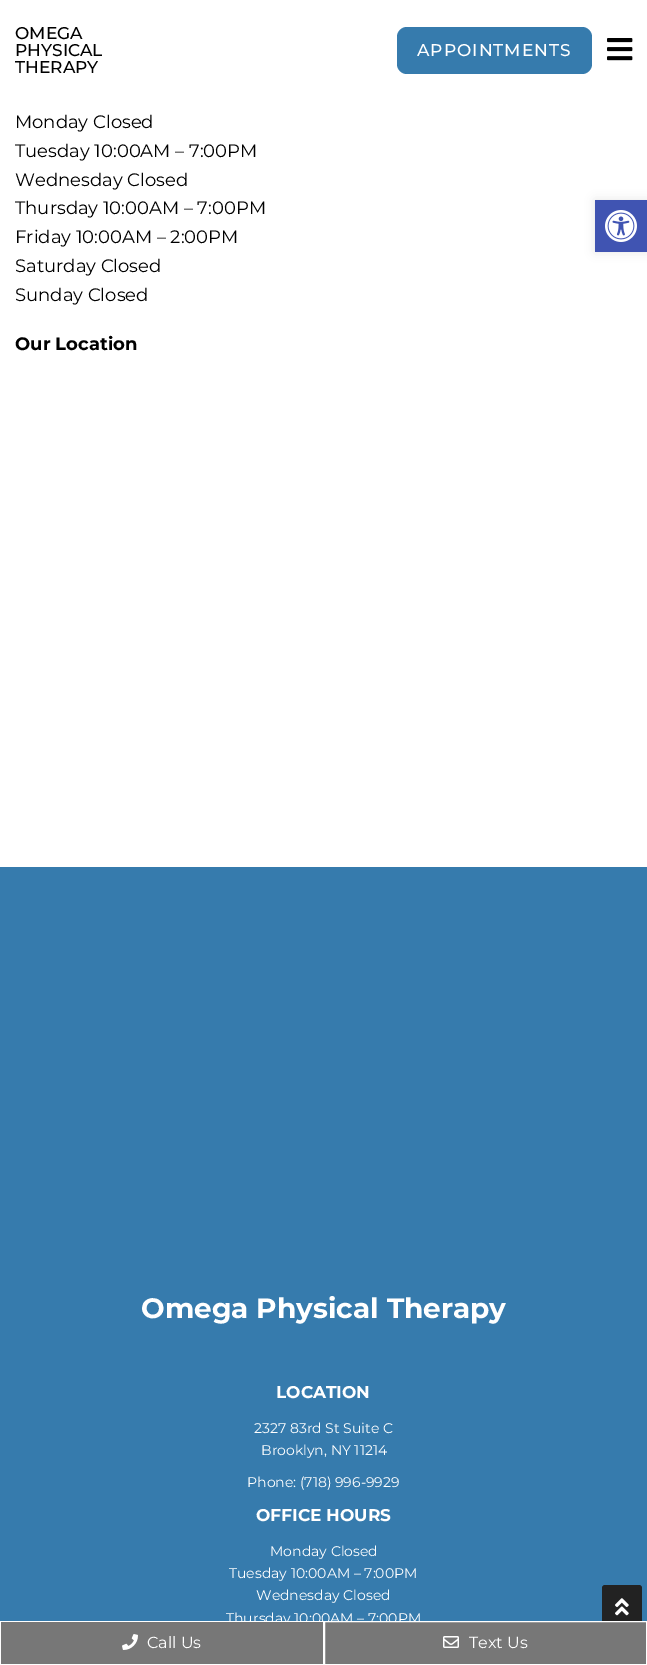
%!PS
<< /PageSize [647 1665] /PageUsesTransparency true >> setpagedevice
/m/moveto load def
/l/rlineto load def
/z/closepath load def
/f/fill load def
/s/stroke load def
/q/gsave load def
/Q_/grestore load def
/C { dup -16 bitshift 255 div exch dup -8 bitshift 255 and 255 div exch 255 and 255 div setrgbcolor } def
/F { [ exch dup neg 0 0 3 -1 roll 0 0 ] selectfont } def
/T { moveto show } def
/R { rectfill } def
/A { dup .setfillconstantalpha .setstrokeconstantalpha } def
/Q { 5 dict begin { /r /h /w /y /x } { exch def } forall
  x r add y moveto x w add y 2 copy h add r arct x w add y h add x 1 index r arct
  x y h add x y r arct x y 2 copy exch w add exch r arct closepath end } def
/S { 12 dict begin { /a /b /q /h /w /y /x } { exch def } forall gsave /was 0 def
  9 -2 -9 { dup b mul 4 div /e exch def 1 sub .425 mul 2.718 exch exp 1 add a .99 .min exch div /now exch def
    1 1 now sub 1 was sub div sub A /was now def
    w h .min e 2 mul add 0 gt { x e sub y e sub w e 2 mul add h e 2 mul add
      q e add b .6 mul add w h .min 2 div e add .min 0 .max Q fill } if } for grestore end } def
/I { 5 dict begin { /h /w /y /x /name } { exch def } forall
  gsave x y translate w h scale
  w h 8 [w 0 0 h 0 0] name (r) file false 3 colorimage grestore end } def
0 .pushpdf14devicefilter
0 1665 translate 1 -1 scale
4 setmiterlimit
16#FFFFFF C
0 0 647 1665 R
/Montserrat-Medium 17 F
16#000000 C
(OMEGA) 15 39 T
(PHYSICAL) 15 56 T
(THERAPY) 15 73 T
16#367BAD C
397 27 195 47 10 Q f
16#FFFFFF C
417 56 m 1 0 (APPOINTMENTS) ashow
(1.rgb) 607 38 26 23 I
/Montserrat-Regular 18 F
16#000000 C
(Monday Closed) 15 128 T
(Tuesday 10:00AM – 7:00PM) 15 157 T
(Wednesday Closed) 15 186 T
(Thursday 10:00AM – 7:00PM) 15 214 T
(Friday 10:00AM – 2:00PM) 15 243 T
(Saturday Closed) 15 272 T
(Sunday Closed) 15 301 T
/Montserrat-Bold 18 F
(Our Location) 15 350 T
16#367BAD C
0 867 647 754 R
/Montserrat-Bold 28 F
16#FFFFFF C
(Omega Physical Therapy) 141 1318 T
/Montserrat-Bold 17 F
(LOCATION) 276 1398 T
/Montserrat-Regular 14 F
(2327 83rd St Suite C) 254 1433 T
(Brooklyn, NY 11214) 261 1455 T
(Phone: \(718\) 996-9929) 247 1487 T
/Montserrat-Bold 17 F
(OFFICE HOURS) 256 1521 T
/Montserrat-Regular 14 F
(Monday Closed) 270 1556 T
(Tuesday 10:00AM – 7:00PM) 229 1578 T
(Wednesday Closed) 256 1600 T
(Thursday 10:00AM – 7:00PM) 226 1623 T
16#000000 C
595 200 52 52 0 5 .1 S
16#4054B2 C
595 200 52 52 R
(2.rgb) 605 210 32 32 I
16#222222 C
602 1585 40 40 3 Q f
(3.rgb) 615 1598 14 18 I
16#777777 C
1 1622 322 42 R
(4.rgb) 122 1634 16 16 I
/Montserrat-Regular 16 F
16#FFFFFF C
(Call Us) 147 1648 T
16#777777 C
324.5 1621.5 m 322 0 l 0 43 l -322 0 l z q f Q_
16#FFFFFF C
s
(5.rgb) 443 1636 16 12 I
(Text Us) 469 1648 T
.poppdf14devicefilter showpage
